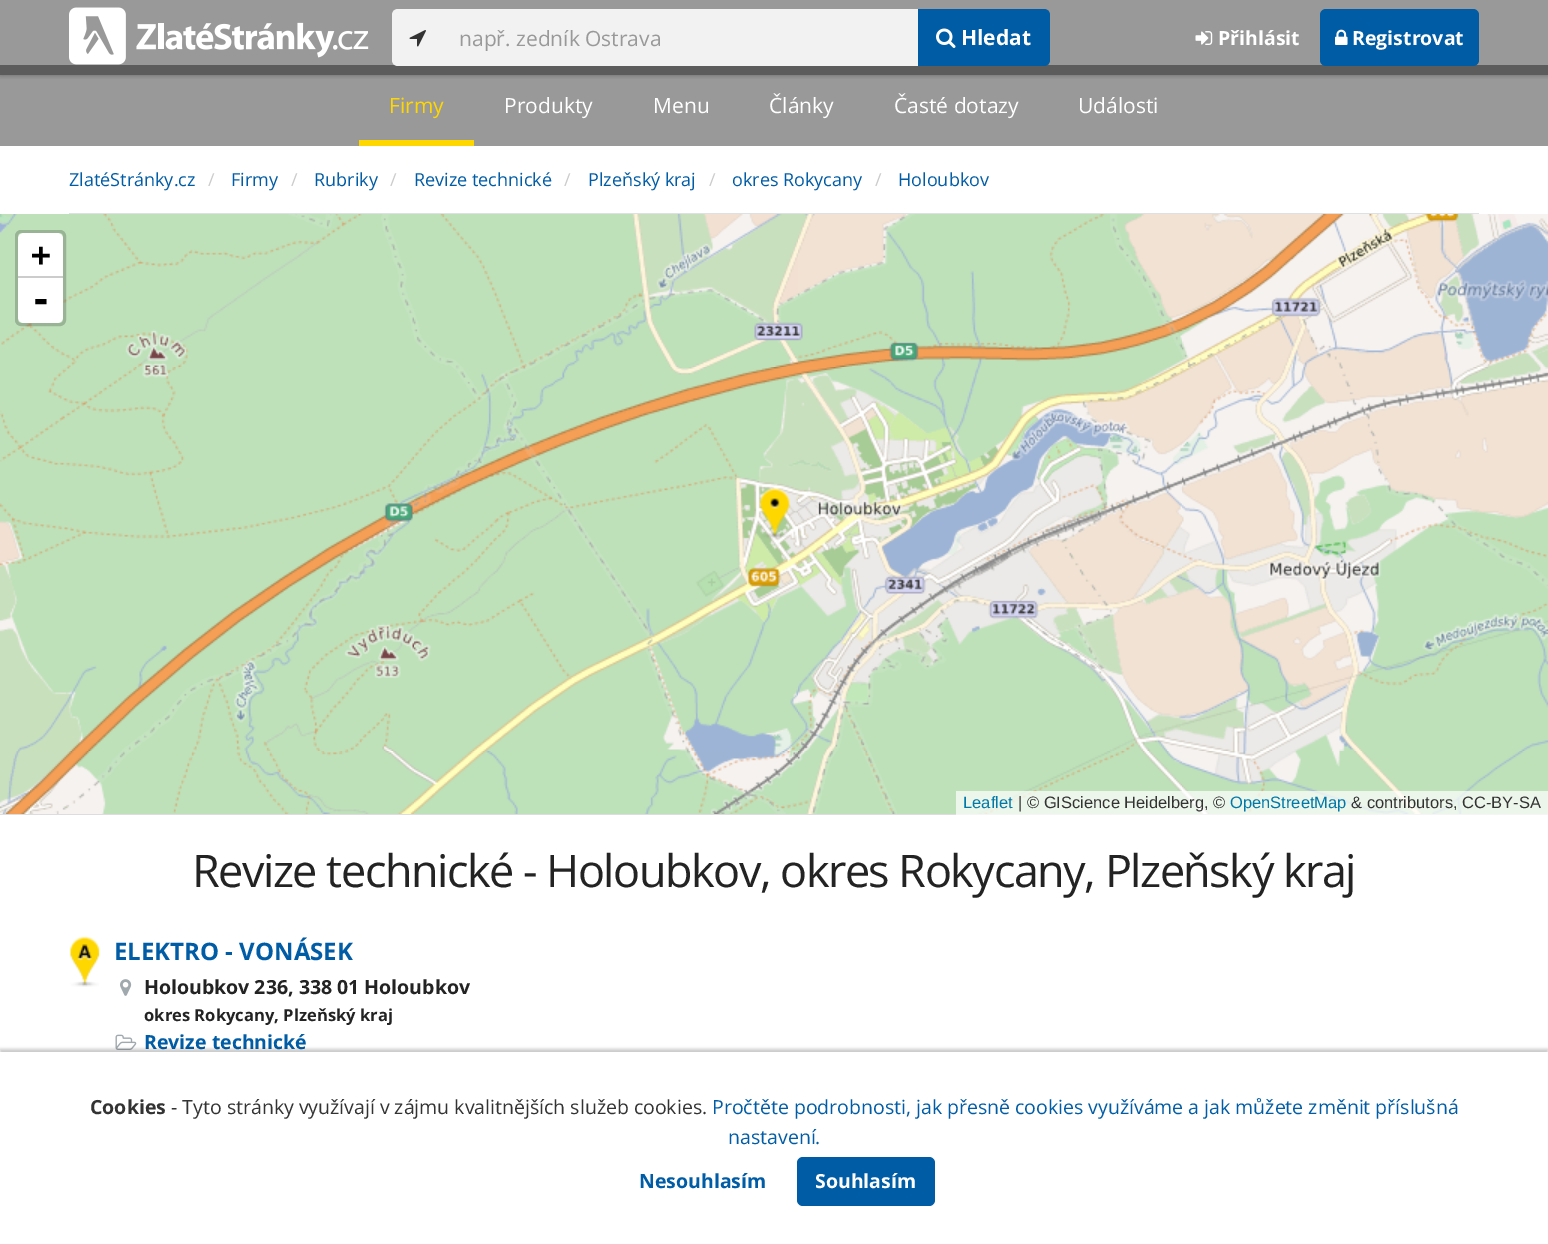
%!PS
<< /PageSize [1548 1244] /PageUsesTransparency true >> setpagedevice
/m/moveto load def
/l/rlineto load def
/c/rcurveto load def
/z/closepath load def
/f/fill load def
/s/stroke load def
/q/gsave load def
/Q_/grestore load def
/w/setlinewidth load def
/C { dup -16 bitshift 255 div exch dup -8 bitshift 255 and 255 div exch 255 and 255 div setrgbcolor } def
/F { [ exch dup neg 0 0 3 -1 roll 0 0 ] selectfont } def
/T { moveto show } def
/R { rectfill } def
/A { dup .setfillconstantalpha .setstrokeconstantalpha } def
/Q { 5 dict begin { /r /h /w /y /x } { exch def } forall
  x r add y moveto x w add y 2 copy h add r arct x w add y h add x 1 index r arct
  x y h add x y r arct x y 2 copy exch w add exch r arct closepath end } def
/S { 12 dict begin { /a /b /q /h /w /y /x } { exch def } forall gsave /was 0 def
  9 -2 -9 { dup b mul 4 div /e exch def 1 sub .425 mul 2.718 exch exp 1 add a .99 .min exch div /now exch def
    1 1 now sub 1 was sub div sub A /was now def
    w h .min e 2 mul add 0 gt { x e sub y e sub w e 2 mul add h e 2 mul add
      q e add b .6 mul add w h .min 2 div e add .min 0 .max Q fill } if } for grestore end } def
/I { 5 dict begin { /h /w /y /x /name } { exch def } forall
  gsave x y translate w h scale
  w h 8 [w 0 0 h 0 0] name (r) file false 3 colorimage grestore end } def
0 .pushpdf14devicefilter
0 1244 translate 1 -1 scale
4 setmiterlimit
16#FFFFFF C
0 0 1548 1244 R
16#999999 C
0 0 1548 65 R
0 75 1548 71 R
16#5C5C5C C
0 65 1548 10 R
q
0 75 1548 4 rectclip
16#000000 C
0 0 1548 75 0 3 .3 S
Q_
(1.rgb) 69 7 300 58 I
16#F2F2F2 C
398 9 m 46 0 l 0 57 l -46 0 l -3.5 0 -6 -2.5 -6 -6 c 0 -45 l 0 -3.5 2.5 -6 6 -6 c z f
(2.rgb) 409 30 17 17 I
444 9 474 57 R
/OpenSans-Regular 21 F
16#999999 C
(např. zedník Ostrava) 459 46 T
16#005CA5 C
918 9 m 126 0 l 3.5 0 6 2.5 6 6 c 0 45 l 0 3.5 -2.5 6 -6 6 c -126 0 l z f
(3.rgb) 936 28 20 20 I
/OpenSans-Bold 21 F
16#FFFFFF C
(Hledat) 961 45 T
(4.rgb) 1195 31 18 14 I
/OpenSans-Bold 19.5 F
(Přihlásit) 1218 45 T
16#005CA5 C
1320 9 159 57 6 Q f
(5.rgb) 1335 29 13 16 I
16#FFFFFF C
(Registrovat) 1352 45 T
16#FFD700 C
359 140 115 6 R
/OpenSans-Regular 21 F
(Firmy) 389 113 T
16#FFFFFF C
(Produkty) 504 113 T
(Menu) 653 113 T
(Články) 769 113 T
(Časté dotazy) 894 113 T
(Události) 1078 113 T
16#DEE1E3 C
69 213 1410 1 R
/OpenSans-Regular 18 F
16#005CA5 C
(ZlatéStránky.cz) 69 186 T
16#CCCCCC C
(/) 208 186 T
16#005CA5 C
(Firmy) 231 186 T
16#CCCCCC C
(/) 291 186 T
16#005CA5 C
(Rubriky) 314 186 T
16#CCCCCC C
(/) 390 186 T
16#005CA5 C
(Revize technické) 414 186 T
16#CCCCCC C
(/) 564 186 T
16#005CA5 C
(Plzeňský kraj) 588 186 T
16#CCCCCC C
(/) 709 186 T
16#005CA5 C
(okres Rokycany) 732 186 T
16#CCCCCC C
(/) 875 186 T
16#005CA5 C
(Holoubkov) 898 186 T
16#DDDDDD C
0 814 1548 1 R
(6.rgb) 0 214 30 153 I
(7.rgb) 30 214 384 153 I
(8.rgb) 414 214 384 153 I
(9.rgb) 798 214 384 153 I
(10.rgb) 1182 214 366 153 I
(11.rgb) 0 367 30 384 I
(12.rgb) 30 367 384 384 I
(13.rgb) 414 367 384 384 I
(14.rgb) 798 367 384 384 I
(15.rgb) 1182 367 366 384 I
(16.rgb) 0 751 30 63 I
(17.rgb) 30 751 384 63 I
(18.rgb) 414 751 384 63 I
(19.rgb) 798 751 384 63 I
(20.rgb) 1182 751 366 63 I
(21.rgb) 759 487 31 52 I
0.2 A
16#000000 C
3 w
16.5 231.5 48 93 4.5 Q s
1 A
16#FFFFFF C
24 233 m 33 0 l 3.5 0 6 2.5 6 6 c 0 39 l -45 0 l 0 -39 l 0 -3.5 2.5 -6 6 -6 c z f
16#CCCCCC C
18 276 45 2 R
/DejaVuSansMono-Bold 33 F
16#000000 C
(+) 31 266 T
16#FFFFFF C
18 278 m 45 0 l 0 39 l 0 3.5 -2.5 6 -6 6 c -33 0 l -3.5 0 -6 -2.5 -6 -6 c z f
/DejaVuSansMono-Bold 36 F
16#000000 C
(-) 30 312 T
0.7 A
16#FFFFFF C
956 791 592 24 R
/LiberationSans-Regular 16.5 F
1 A
16#0078A8 C
(Leaflet) 963 808 T
16#333333 C
(| © GIScience Heidelberg, ©) 1018 808 T
16#0078A8 C
(OpenStreetMap) 1230 808 T
16#333333 C
(& contributors, CC-BY-SA) 1351 808 T
/OpenSans-Regular 45 F
16#232323 C
192 887 m -1.5 0 (Revize technické - Holoubkov, okres Rokycany, Plzeňský kraj) ashow
(22.rgb) 70 936 30 51 I
/OpenSans-Bold 24 F
16#005CA5 C
(ELEKTRO - VONÁSEK) 114 960 T
(23.rgb) 120 979 12 17 I
/OpenSans-Bold 19.5 F
16#232323 C
(Holoubkov 236, 338 01 Holoubkov) 144 994 T
/OpenSans-Bold 16.6 F
(okres Rokycany, Plzeňský kraj) 144 1021 T
(24.rgb) 115 1034 22 16 I
/OpenSans-Bold 19.5 F
16#005CA5 C
(Revize technické) 144 1049 T
16#000000 C
0 1049 1548 193 0 1.5 .2 S
16#FFFFFF C
0 1052 1548 192 R
16#333333 C
(Cookies) 90 1114 T
/OpenSans-Regular 19.5 F
(- Tyto stránky využívají v zájmu kvalitnějších služeb cookies.) 171 1114 T
16#005CA5 C
(Pročtěte podrobnosti, jak přesně cookies využíváme a jak můžete změnit příslušná) 712 1114 T
(nastavení.) 728 1144 T
/OpenSans-Bold 19.5 F
(Nesouhlasím) 639 1188 T
797 1157 138 49 6 Q f
16#FFFFFF C
(Souhlasím) 815 1188 T
.poppdf14devicefilter showpage
